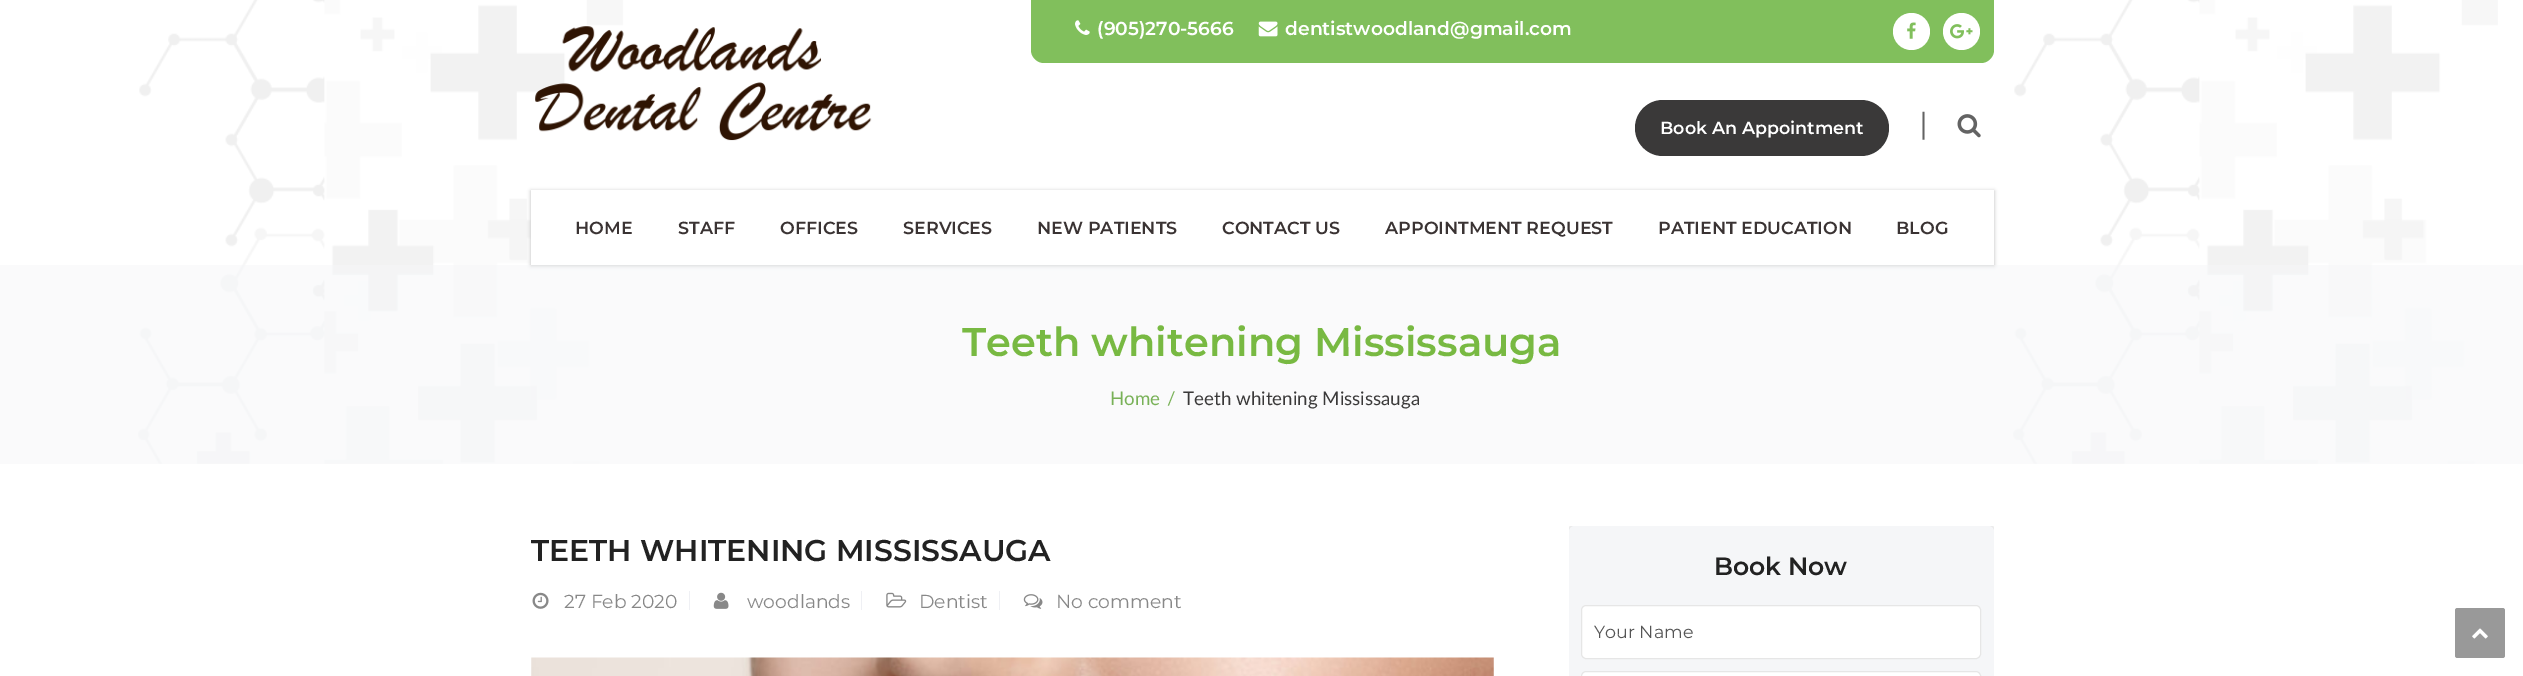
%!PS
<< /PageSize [2523 676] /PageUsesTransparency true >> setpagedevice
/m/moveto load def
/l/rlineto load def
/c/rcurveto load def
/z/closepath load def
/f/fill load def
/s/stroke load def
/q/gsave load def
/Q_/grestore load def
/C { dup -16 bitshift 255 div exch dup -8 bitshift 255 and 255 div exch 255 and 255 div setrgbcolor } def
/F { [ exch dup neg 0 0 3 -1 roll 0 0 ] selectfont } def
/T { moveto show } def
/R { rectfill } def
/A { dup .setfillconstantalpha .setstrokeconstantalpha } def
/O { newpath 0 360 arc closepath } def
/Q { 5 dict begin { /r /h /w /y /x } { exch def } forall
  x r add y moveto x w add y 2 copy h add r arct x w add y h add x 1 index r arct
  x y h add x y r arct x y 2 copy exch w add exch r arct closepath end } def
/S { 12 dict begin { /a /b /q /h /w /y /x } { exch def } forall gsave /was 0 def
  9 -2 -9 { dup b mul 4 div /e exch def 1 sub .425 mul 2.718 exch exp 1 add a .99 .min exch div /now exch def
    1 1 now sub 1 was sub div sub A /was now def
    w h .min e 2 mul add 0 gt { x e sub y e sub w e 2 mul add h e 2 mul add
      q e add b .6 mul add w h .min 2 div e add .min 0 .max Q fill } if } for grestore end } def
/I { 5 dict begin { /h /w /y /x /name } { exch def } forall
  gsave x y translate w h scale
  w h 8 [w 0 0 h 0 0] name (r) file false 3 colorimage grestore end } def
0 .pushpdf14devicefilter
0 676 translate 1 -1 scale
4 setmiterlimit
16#FFFFFF C
0 0 2523 676 R
(1.rgb) 138 0 2360 464 I
(2.rgb) 535 26 337 115 I
16#81BF5C C
1031 0 m 963 0 l 0 50 l 0 7 -6 13 -13 13 c -937 0 l -7 0 -13 -6 -13 -13 c z f
(3.rgb) 1075 20 15 15 I
/Montserrat-SemiBold 18.75 F
16#FFFFFF C
(\(905\)270-5666) 1097 35 T
(4.rgb) 1258 21 20 16 I
(dentistwoodland@gmail.com) 1285 35 T
1911.5 31.5 18.5 O f
(5.rgb) 1907 22 9 17 I
1961.5 31.5 18.5 O f
(6.rgb) 1950 24 23 15 I
16#3A3939 C
1635 100 254 56 28 Q f
/Montserrat-SemiBold 17.5 F
16#FFFFFF C
(Book An Appointment) 1660 134 T
/Montserrat-Regular 30 F
16#636363 C
(|) 1919 134 T
(7.rgb) 1957 114 24 24 I
16#BABABA C
531 191 1463 75 0 2 1 S
16#FFFFFF C
531 190 1463 75 R
/Montserrat-SemiBold 17.5 F
16#3A3333 C
(HOME) 575 234 T
(STAFF) 678 234 T
(OFFICES) 780 234 T
(SERVICES) 903 234 T
(NEW PATIENTS) 1037 234 T
(CONTACT US) 1222 234 T
(APPOINTMENT REQUEST) 1385 234 T
(PATIENT EDUCATION) 1658 234 T
(BLOG) 1896 234 T
0.5 A
16#F5F6F8 C
0 265 2523 199 R
/Montserrat-SemiBold 40 F
1 A
16#78B942 C
(Teeth whitening Mississauga) 962 356 T
/Lato-Regular 18.75 F
16#78B157 C
(Home) 1110 405 T
(/) 1167 405 T
16#3A3939 C
(Teeth whitening Mississauga) 1183 405 T
q
531 526 1013 119 rectclip
/Montserrat-SemiBold 30 F
16#222222 C
(TEETH WHITENING MISSISSAUGA) 531 561 T
Q_
(8.rgb) 532 592 17 17 I
/Montserrat-Regular 18.75 F
16#888888 C
(27 Feb 2020) 564 608 T
16#EFF0F4 C
689 591 1 19 R
(9.rgb) 713 592 16 17 I
16#888888 C
(woodlands) 747 608 T
16#EFF0F4 C
861 591 1 19 R
(10.rgb) 886 592 21 16 I
16#888888 C
(Dentist) 919 608 T
16#EFF0F4 C
999 591 1 19 R
(11.rgb) 1023 594 20 15 I
16#888888 C
(No comment) 1056 608 T
(12.rgb) 531 657 963 19 I
q
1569 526 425 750 rectclip
16#BABABA C
1569 526 425 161 5 2 1 S
Q_
16#F5F6F8 C
1569 526 425 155 5 Q f
/Montserrat-SemiBold 25 F
16#222222 C
(Book Now) 1714 575 T
16#FFFFFF C
1581.5 605.5 399 53 4.5 Q q f Q_
16#E6E6E6 C
s
/Montserrat-Regular 17.5 F
16#555555 C
(Your Name) 1594 638 T
16#FFFFFF C
1581.5 671.5 399 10 4.5 Q q f Q_
16#E6E6E6 C
s
16#999999 C
2455 608 50 50 2.5 Q f
(13.rgb) 2472 628 16 11 I
.poppdf14devicefilter showpage
